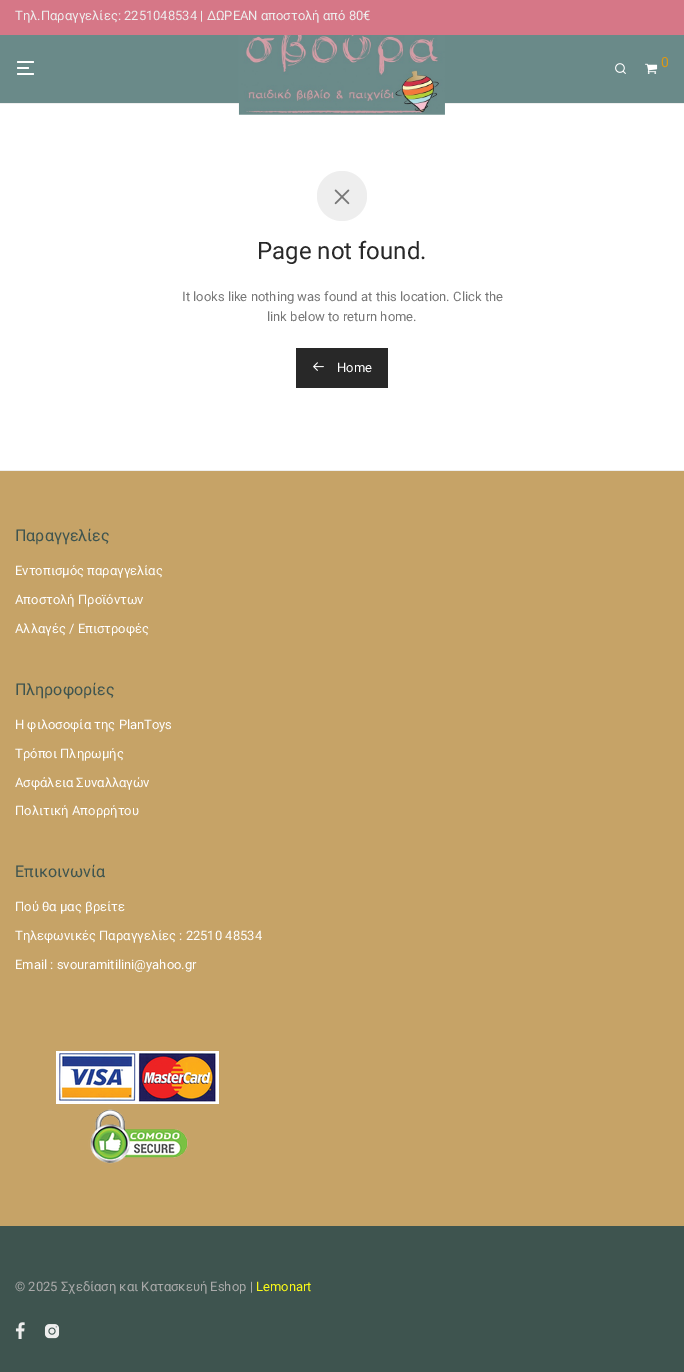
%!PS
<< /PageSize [684 1372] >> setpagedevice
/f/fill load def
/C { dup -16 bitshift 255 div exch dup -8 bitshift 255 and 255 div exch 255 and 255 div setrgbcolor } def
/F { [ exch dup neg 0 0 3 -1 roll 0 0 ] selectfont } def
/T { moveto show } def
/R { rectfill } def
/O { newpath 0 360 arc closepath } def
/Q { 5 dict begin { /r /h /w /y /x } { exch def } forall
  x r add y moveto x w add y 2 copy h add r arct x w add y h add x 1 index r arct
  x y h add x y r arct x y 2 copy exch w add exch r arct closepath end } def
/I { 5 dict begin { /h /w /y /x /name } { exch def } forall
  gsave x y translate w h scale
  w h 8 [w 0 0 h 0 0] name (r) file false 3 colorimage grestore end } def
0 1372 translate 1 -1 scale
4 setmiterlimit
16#FFFFFF C
0 0 684 1372 R
16#D67787 C
0 0 684 35 R
/Roboto-Regular 13 F
16#EEEEEE C
(Τηλ.Παραγγελίες: 2251048534 | ΔΩΡΕΑΝ αποστολή από 80€) 15 20 T
16#6A8A89 C
0 35 684 68 R
16#EEEEEE C
0 103 684 1 R
(1.rgb) 238 35 207 80 I
16#FFFFFF C
17 61 17 2 1 Q f
17 67 12 2 1 Q f
17 73 17 2 1 Q f
(2.rgb) 615 63 11 11 I
(3.rgb) 645 63 13 11 I
/Roboto-Regular 14 F
16#DC9814 C
(0) 661 67 T
16#EEEEEE C
342 196 25 O f
(4.rgb) 334 189 16 16 I
/Roboto-Regular 24 F
16#282828 C
(Page not found.) 257 259 T
/Roboto-Regular 13 F
16#777777 C
(It looks like nothing was found at this location. Click the) 182 301 T
(link below to return home.) 267 321 T
16#282828 C
296 348 92 40 R
(5.rgb) 313 362 11 9 I
16#FFFFFF C
(Home) 337 372 T
16#C6A367 C
0 471 684 755 R
16#EEEEEE C
0 470 684 1 R
/Roboto-Regular 16 F
16#3E544F C
(Παραγγελίες) 15 541 T
/Roboto-Regular 13 F
16#FFFFFF C
(Εντοπισμός παραγγελίας) 15 575 T
(Αποστολή Προϊόντων) 15 604 T
(Αλλαγές / Επιστροφές) 15 633 T
/Roboto-Regular 16 F
16#3E544F C
(Πληροφορίες) 15 695 T
/Roboto-Regular 13 F
16#FFFFFF C
(Η φιλοσοφία της PlanToys) 15 729 T
(Τρόποι Πληρωμής) 15 758 T
(Ασφάλεια Συναλλαγών) 15 787 T
(Πολιτική Απορρήτου) 15 815 T
/Roboto-Regular 16 F
16#3E544F C
(Επικοινωνία) 15 877 T
/Roboto-Regular 13 F
16#FFFFFF C
(Πού θα μας βρείτε) 15 911 T
(Τηλεφωνικές Παραγγελίες : 22510 48534) 15 940 T
(Email : svouramitilini@yahoo.gr) 15 969 T
(6.rgb) 56 1051 163 113 I
16#3E544F C
0 1226 684 146 R
16#AAAAAA C
(© 2025 Σχεδίαση και Κατασκευή Eshop |) 15 1291 T
16#F9F918 C
(Lemonart) 256 1291 T
(7.rgb) 15 1322 10 17 I
(8.rgb) 44 1324 16 15 I
showpage
